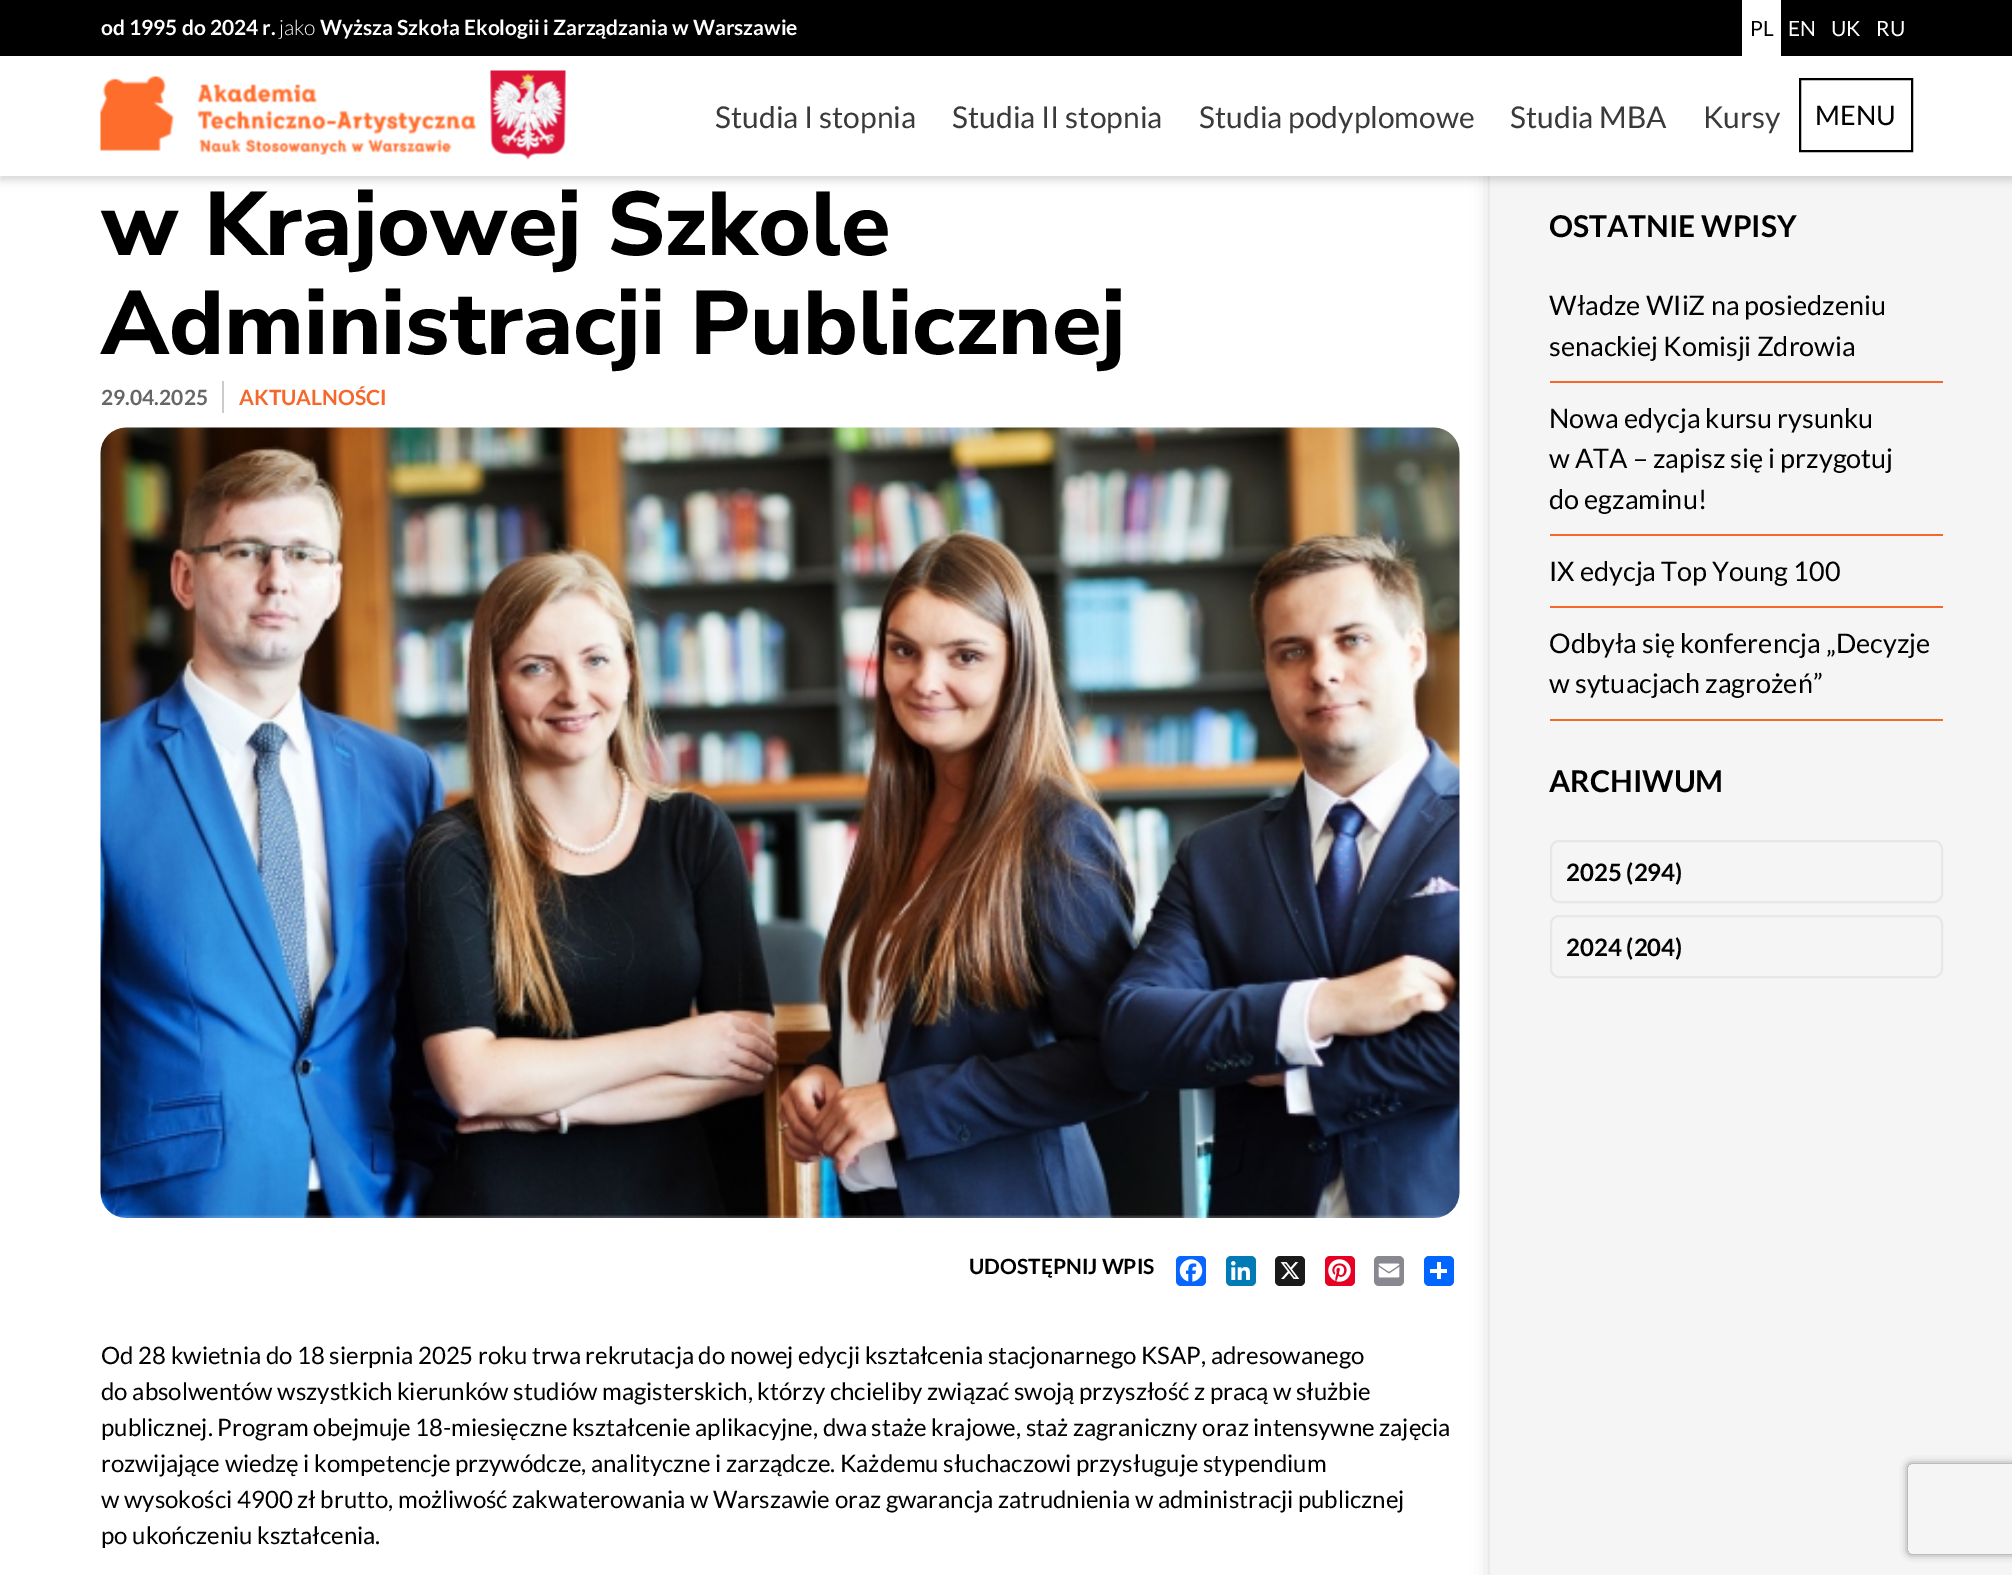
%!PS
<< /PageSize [2012 1575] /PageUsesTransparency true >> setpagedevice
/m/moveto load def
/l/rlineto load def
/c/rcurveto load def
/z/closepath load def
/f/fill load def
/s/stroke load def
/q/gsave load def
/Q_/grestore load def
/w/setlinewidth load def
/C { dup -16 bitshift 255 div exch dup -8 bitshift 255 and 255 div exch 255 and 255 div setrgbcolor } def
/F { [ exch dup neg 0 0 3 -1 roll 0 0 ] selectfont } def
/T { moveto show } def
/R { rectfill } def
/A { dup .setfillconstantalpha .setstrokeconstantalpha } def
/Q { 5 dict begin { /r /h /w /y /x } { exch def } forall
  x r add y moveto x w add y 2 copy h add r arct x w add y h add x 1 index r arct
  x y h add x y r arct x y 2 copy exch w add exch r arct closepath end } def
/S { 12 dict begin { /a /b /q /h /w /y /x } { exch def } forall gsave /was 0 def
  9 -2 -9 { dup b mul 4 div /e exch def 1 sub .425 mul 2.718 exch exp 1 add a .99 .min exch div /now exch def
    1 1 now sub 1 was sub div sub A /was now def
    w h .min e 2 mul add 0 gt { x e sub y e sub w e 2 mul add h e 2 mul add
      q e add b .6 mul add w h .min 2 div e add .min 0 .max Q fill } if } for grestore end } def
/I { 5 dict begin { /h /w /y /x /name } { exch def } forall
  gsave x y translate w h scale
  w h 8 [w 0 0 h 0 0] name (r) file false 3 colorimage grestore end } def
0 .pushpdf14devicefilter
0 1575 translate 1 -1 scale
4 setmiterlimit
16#FFFFFF C
0 0 2012 1575 R
16#000000 C
1490 -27 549 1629 0 9 .16 S
16#F5F5F5 C
1490 176 522 1399 R
16#000000 C
0 5 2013 175 0 4.5 .16 S
16#FFFFFF C
0 56 2012 120 R
16#000000 C
0 0 2012 56 R
/Lato-Bold 21 F
16#FFFFFF C
(od 1995 do 2024 r.) 101 35 T
/Lato-Light 21 F
(jako) 279 35 T
/Lato-Bold 21 F
(Wyższa Szkoła Ekologii i Zarządzania w Warszawie) 320 35 T
1742 0 39 56 R
/Lato-Regular 21 F
16#000000 C
(PL) 1750 36 T
16#FFFFFF C
(EN) 1788 36 T
(UK) 1831 36 T
(RU) 1876 36 T
(1.rgb) 100 76 376 79 I
(2.rgb) 490 70 76 90 I
/Lato-Regular 30 F
16#3A3A3A C
(Studia I stopnia) 715 128 T
(Studia II stopnia) 952 128 T
(Studia podyplomowe) 1199 128 T
(Studia MBA) 1510 128 T
(Kursy) 1703 128 T
16#000000 C
2 w
1800 79 112 72 rectstroke
/Lato-Regular 27 F
(MENU) 1815 125 T
/NunitoSans-ExtraBold 90 F
(w Krajowej Szkole) 101 255 T
(Administracji Publicznej) 101 354 T
/Lato-Bold 21 F
16#666666 C
(29.04.2025) 101 405 T
16#CCCCCC C
222 381 2 32 R
16#F5682C C
(AKTUALNOŚCI) 239 405 T
(3.rgb) 100 427 1360 791 I
16#000000 C
(UDOSTĘPNIJ WPIS) 969 1274 T
16#0866FF C
1176 1256 30 30 5 Q f
(4.rgb) 1179 1259 24 23 I
16#007BB5 C
1226 1256 30 30 5 Q f
(5.rgb) 1231 1261 19 19 I
16#1A1A1A C
1275 1256 30 30 5 Q f
(6.rgb) 1280 1262 20 17 I
16#E60023 C
1325 1256 30 30 5 Q f
(7.rgb) 1328 1259 23 23 I
16#888990 C
1374 1256 30 30 5 Q f
(8.rgb) 1378 1263 22 15 I
16#0166FF C
1424 1256 30 30 5 Q f
16#FFFFFF C
1437 1262 4 17 R
1430 1269 17 4 R
/Lato-Regular 24 F
16#000000 C
(Od 28 kwietnia do 18 sierpnia 2025 roku trwa rekrutacja do nowej edycji kształcenia stacjonarnego KSAP, adresowanego) 101 1364 T
(do absolwentów wszystkich kierunków studiów magisterskich, którzy chcieliby związać swoją przyszłość z pracą w służbie) 101 1400 T
(publicznej. Program obejmuje 18-miesięczne kształcenie aplikacyjne, dwa staże krajowe, staż zagraniczny oraz intensywne zajęcia) 101 1436 T
(rozwijające wiedzę i kompetencje przywódcze, analityczne i zarządcze. Każdemu słuchaczowi przysługuje stypendium) 101 1472 T
(w wysokości 4900 zł brutto, możliwość zakwaterowania w Warszawie oraz gwarancja zatrudnienia w administracji publicznej) 101 1508 T
(po ukończeniu kształcenia.) 101 1544 T
/Lato-Bold 30 F
(OSTATNIE WPISY) 1549 237 T
16#F5682C C
1550 381 393 2 R
/Lato-Regular 27 F
16#000000 C
(Władze WIiZ na posiedzeniu) 1549 315 T
(senackiej Komisji Zdrowia) 1549 356 T
16#F5682C C
1550 534 393 2 R
16#000000 C
(Nowa edycja kursu rysunku) 1549 428 T
(w ATA – zapisz się i przygotuj) 1549 468 T
(do egzaminu!) 1549 509 T
16#F5682C C
1550 606 393 2 R
16#000000 C
(IX edycja Top Young 100) 1549 581 T
16#F5682C C
1550 719 393 2 R
16#000000 C
(Odbyła się konferencja „Decyzje) 1549 653 T
(w sytuacjach zagrożeń”) 1549 693 T
/Lato-Bold 30 F
(ARCHIWUM) 1549 792 T
16#E5E7EB C
1551 841 391 61 8 Q s
/Lato-Bold 24 F
16#000000 C
(2025 \(294\)) 1566 881 T
16#E5E7EB C
1551 916 391 61 8 Q s
16#000000 C
(2024 \(204\)) 1566 956 T
q
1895 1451 m 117 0 l 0 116 l -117 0 l z 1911 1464 m 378 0 l 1.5 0 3 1.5 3 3 c 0 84 l 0 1.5 -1.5 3 -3 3 c -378 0 l -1.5 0 -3 -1.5 -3 -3 c 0 -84 l 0 -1.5 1.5 -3 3 -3 c z eoclip newpath
16#808080 C
1908 1464 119 90 3 4 1 S
Q_
.poppdf14devicefilter showpage
